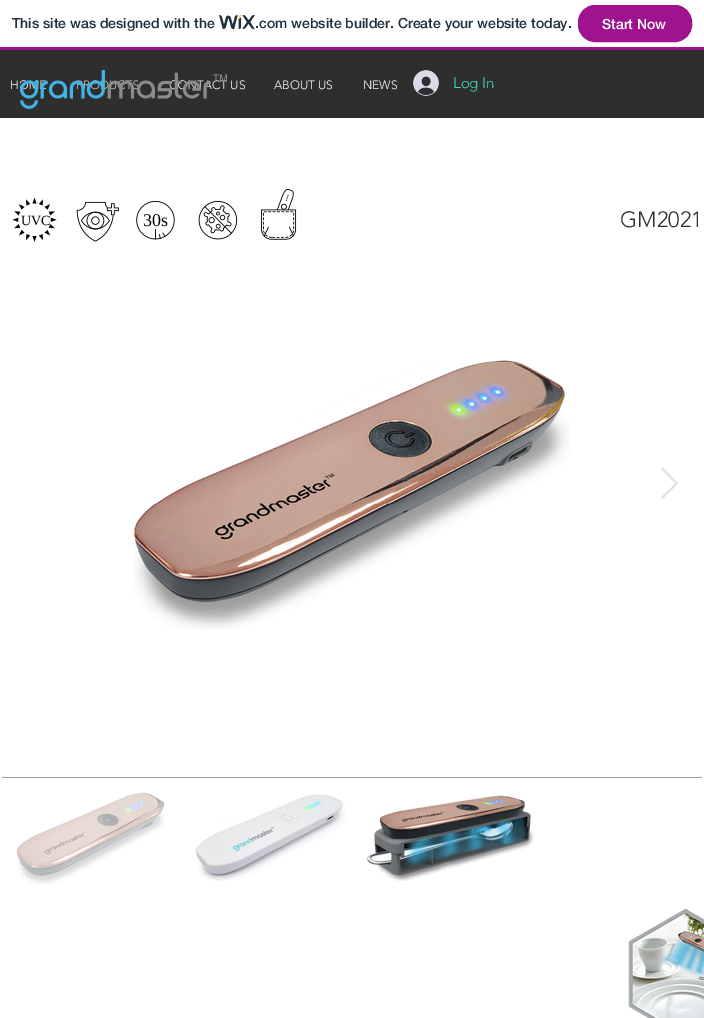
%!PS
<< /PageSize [704 1018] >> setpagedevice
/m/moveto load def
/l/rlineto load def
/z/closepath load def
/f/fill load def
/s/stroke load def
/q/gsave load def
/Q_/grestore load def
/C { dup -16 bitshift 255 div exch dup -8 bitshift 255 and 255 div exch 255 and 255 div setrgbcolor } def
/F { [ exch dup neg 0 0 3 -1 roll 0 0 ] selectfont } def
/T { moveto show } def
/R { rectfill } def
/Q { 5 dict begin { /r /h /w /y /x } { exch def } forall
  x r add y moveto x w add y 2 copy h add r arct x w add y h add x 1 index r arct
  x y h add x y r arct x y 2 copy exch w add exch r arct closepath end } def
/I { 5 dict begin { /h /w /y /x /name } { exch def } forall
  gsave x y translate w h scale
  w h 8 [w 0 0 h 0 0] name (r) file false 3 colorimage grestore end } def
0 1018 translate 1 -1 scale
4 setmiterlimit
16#FFFFFF C
0 0 704 1018 R
16#A0138E C
0 47 704 3 R
/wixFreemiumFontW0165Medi-Medium 14 F
16#20303C C
(This site was designed with the) 12 28 T
(1.rgb) 219 15 36 15 I
(.com website builder. Create your website today.) 255 28 T
16#A0138E C
578.5 5.5 113 36 16.5 Q q f Q_
s
16#FFFFFF C
(Start Now) 602 29 T
16#2F2E2E C
0 50 704 68 R
/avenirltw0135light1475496-Light 12 F
16#CCCCCC C
(PRODUCTS) 76 89 T
16#FFFFFF C
(CT US) 212 89 T
(2.rgb) 20 70 207 39 I
(H) 10 89 T
(ABOUT US) 274 89 T
(NEWS) 363 89 T
(3.rgb) 413 70 26 26 I
/avenirltw0135light1475496-Light 15 F
16#44DBBD C
(Log In) 453 88 T
(4.rgb) 12 188 285 54 I
/LiberationSerif-Regular 14 F
16#000000 C
(UVC) 21 225 T
/LiberationSerif-Regular 18 F
(30s) 143 226 T
/avenirltw0135light1475496-Light 22 F
16#2F2E2E C
(GM2021) 620 227 T
(5.rgb) 133 360 437 270 I
16#E0DEEA C
661 469 m 1.5 -1.5 l 15.5 16 l -15.5 15.5 l -1.5 -1.5 l 14.5 -14 l z f
(6.rgb) 16 792 150 93 I
(7.rgb) 195 794 151 87 I
(8.rgb) 366 795 168 86 I
16#A0A09F C
2 777 700 1 R
(9.rgb) 628 908 76 110 I
showpage
